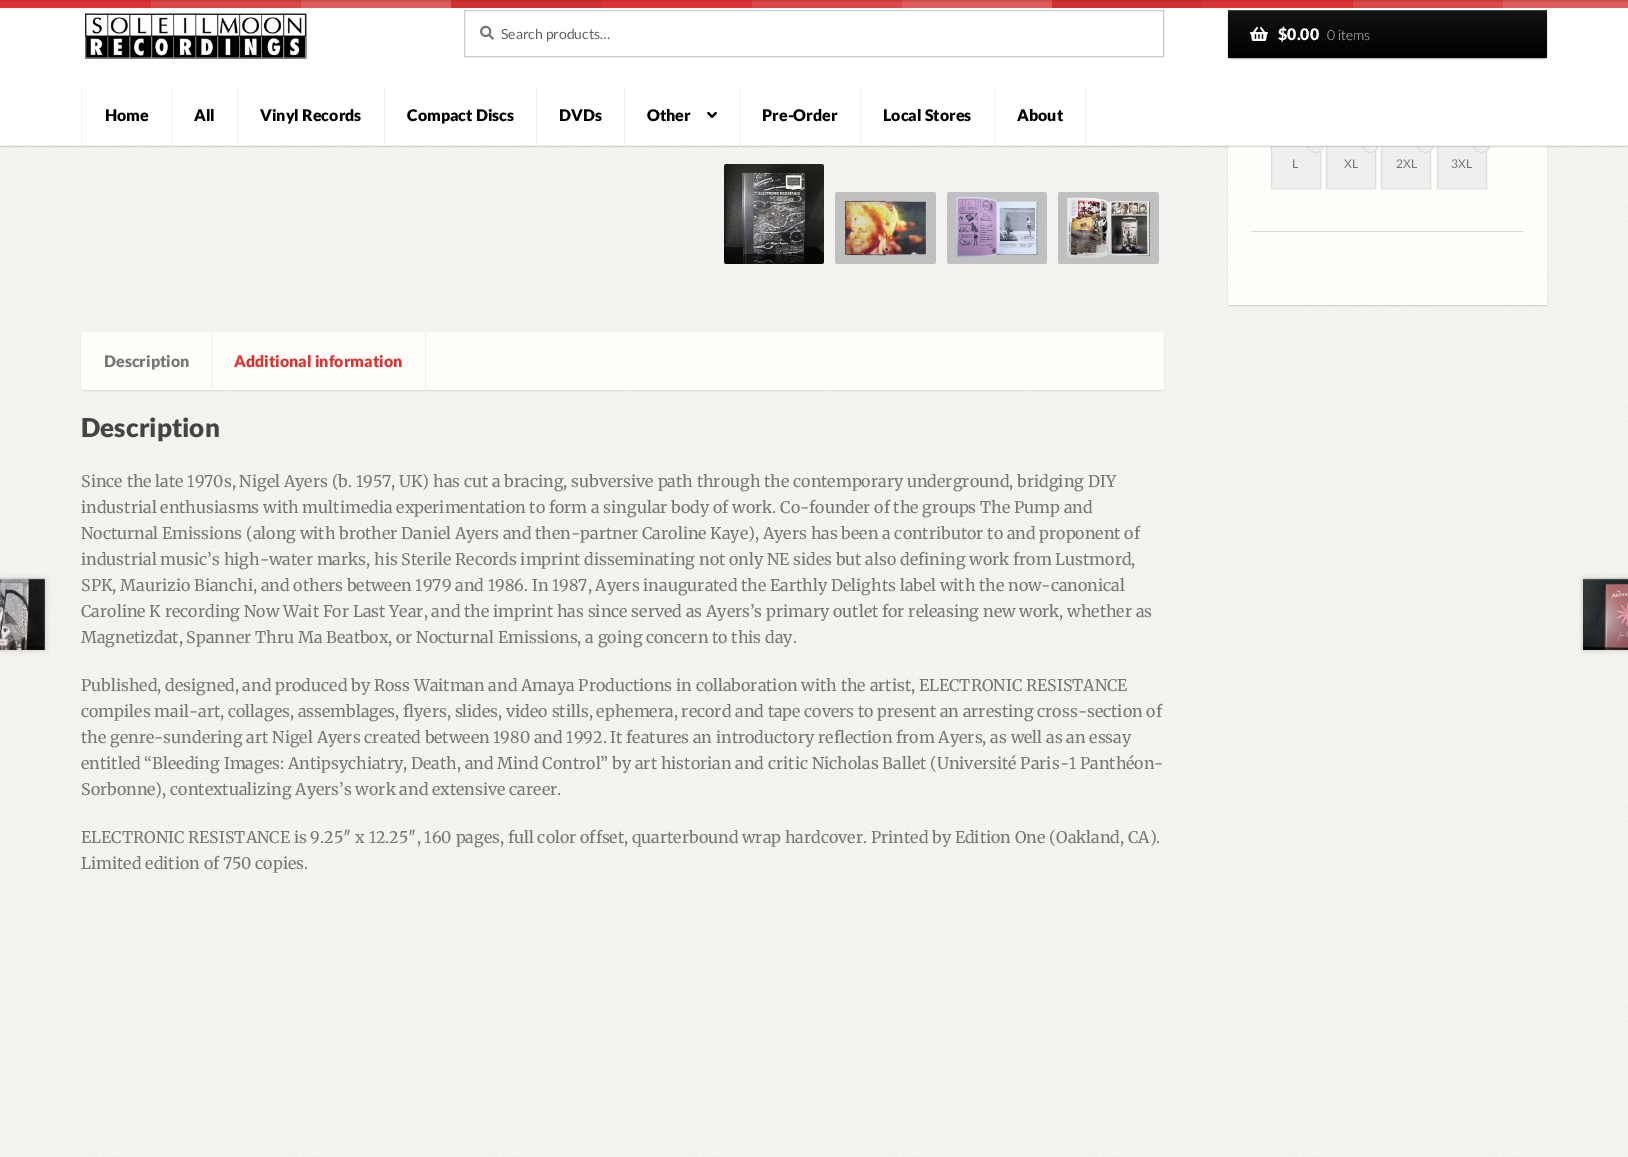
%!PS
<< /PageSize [1628 1157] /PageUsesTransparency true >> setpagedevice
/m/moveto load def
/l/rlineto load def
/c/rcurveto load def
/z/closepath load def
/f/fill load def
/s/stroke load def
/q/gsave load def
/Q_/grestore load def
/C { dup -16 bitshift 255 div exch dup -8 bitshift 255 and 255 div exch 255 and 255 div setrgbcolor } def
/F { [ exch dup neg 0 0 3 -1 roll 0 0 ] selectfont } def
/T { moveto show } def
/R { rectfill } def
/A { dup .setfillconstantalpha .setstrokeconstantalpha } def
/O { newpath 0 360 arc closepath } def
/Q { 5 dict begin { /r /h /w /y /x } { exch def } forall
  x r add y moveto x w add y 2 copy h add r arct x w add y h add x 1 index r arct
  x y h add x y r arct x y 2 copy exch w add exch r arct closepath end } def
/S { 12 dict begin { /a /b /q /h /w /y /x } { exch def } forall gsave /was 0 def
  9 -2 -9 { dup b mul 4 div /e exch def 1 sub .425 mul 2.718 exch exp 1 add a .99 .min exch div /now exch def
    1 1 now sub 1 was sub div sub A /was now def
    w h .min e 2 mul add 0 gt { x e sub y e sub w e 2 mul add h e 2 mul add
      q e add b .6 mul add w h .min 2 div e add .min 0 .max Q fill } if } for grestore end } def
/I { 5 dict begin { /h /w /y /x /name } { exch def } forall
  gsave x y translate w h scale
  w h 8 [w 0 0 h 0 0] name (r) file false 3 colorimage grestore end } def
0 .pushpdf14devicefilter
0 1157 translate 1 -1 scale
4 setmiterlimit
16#FFFFFF C
0 0 1628 1157 R
(1.rgb) 0 146 1628 1011 I
16#000000 C
1228 -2 319 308 0 .5 .15 S
16#FEFDF9 C
1228 146 319 159 R
q
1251 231 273 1 rectclip
16#000000 C
1251 -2 273 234 0 .5 .15 S
Q_
16#EFEFEF C
1272 146 48 42 R
16#DDDDDD C
1271.5 139.5 49 49 rectstroke
16#EFEFEF C
1315.5 144.5 8 O q f Q_
16#DDDDDD C
s
16#EFEFEF C
1327 146 48 42 R
16#DDDDDD C
1326.5 139.5 49 49 rectstroke
16#EFEFEF C
1370.5 144.5 8 O q f Q_
16#DDDDDD C
s
16#EFEFEF C
1382 146 48 42 R
16#DDDDDD C
1381.5 139.5 49 49 rectstroke
16#EFEFEF C
1425.5 144.5 8 O q f Q_
16#DDDDDD C
s
16#EFEFEF C
1438 146 48 42 R
16#DDDDDD C
1437.5 139.5 49 49 rectstroke
16#EFEFEF C
1481.5 144.5 8 O q f Q_
16#DDDDDD C
s
16#000000 C
0 1 1628 146 0 .5 .15 S
16#DD3333 C
0 0 1628 8 R
(2.rgb) 151 0 1477 8 I
16#000000 C
0 -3 1628 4 0 1 .2 S
16#FFFFFF C
0 8 1628 137 R
16#F0F0F0 C
0 145 1628 1 R
(3.rgb) 85 13 222 46 I
16#CCCCCC C
464.5 10.5 699 46 rectstroke
(4.rgb) 480 25 14 15 I
/Lato-Regular 14 F
16#616161 C
(Search products…) 501 39 T
16#000000 C
1228 11 319 48 3 .5 .3 S
q 1228 10 319 48 3 Q clip newpath
<< /ShadingType 2 /ColorSpace /DeviceRGB /Coords [1388 10 1388 58] /Extend [true true] /Function << /FunctionType 2 /Domain [0 1] /C0 [.078 .078 .078] /C1 [0 0 0] /N 1 >> >> shfill Q_
0.2 A
16#FFFFFF C
1231 11 m 313 0 l 2 0 3 1 3 3 c -1 -3 l -1 -1 l -314 0 l -2 0 -3 2 -3 4 c 0 -2 1 -3 3 -3 c z f
0.4 A
16#000000 C
1228 54 m 1 3 l 1 1 l 314 0 l 2 0 3 -2 3 -4 c 0 2 -1 3 -3 3 c -313 0 l -2 0 -3 -1 -3 -3 c z f
1 A
(5.rgb) 1250 27 18 14 I
/Lato-Black 16 F
16#FFFFFF C
($0.00) 1278 40 T
/Lato-Light 14 F
16#CECECE C
(0 items) 1327 40 T
16#E6E6E6 C
[1 1] 0 setdash
171.5 86 m 0 58 l s
81.5 86 m 0 58 l s
/Lato-Black 16 F
16#000000 C
(Home) 105 121 T
16#E6E6E6 C
237.5 86 m 0 58 l s
16#000000 C
(All) 194 121 T
16#E6E6E6 C
384.5 86 m 0 58 l s
16#000000 C
(Vinyl Records) 260 121 T
16#E6E6E6 C
536.5 86 m 0 58 l s
16#000000 C
(Compact Discs) 407 121 T
16#E6E6E6 C
624.5 86 m 0 58 l s
16#000000 C
(DVDs) 559 121 T
16#E6E6E6 C
739.5 86 m 0 59 l s
16#000000 C
(Other) 647 121 T
(6.rgb) 707 111 10 8 I
16#E6E6E6 C
860.5 86 m 0 58 l s
16#000000 C
(Pre-Order) 762 121 T
16#E6E6E6 C
994.5 86 m 0 58 l s
16#000000 C
(Local Stores) 883 121 T
16#E6E6E6 C
1085.5 86 m 0 58 l s
16#000000 C
(About) 1017 121 T
/Lato-Regular 12 F
16#777777 C
(L) 1292 168 T
(XL) 1344 168 T
(2XL) 1396 168 T
(3XL) 1451 168 T
(7.rgb) 724 164 100 100 I
(8.rgb) 835 192 101 72 I
(9.rgb) 947 192 100 72 I
(10.rgb) 1058 192 101 72 I
16#000000 C
81 333 1083 58 2 .5 .1 S
16#FEFDF9 C
81 332 1083 58 2 Q f
16#E5E4E0 C
211.5 332 m 0 58 l s
/Lato-Black 16 F
16#777777 C
(Description) 104 367 T
16#E5E4E0 C
425.5 332 m 0 58 l s
16#DD3333 C
(Additional information) 234 367 T
/Lato-Black 26 F
16#444444 C
(Description) 81 437 T
/Merriweather-Regular 16 F
16#777777 C
(Since the late 1970s, Nigel Ayers \(b. 1957, UK\) has cut a bracing, subversive path through the contemporary underground, bridging DIY) 81 487 T
(industrial enthusiasms with multimedia experimentation to form a singular body of work. Co-founder of the groups The Pump and) 81 513 T
(Nocturnal Emissions \(along with brother Daniel Ayers and then-partner Caroline Kaye\), Ayers has been a contributor to and proponent of) 81 539 T
(industrial music’s high-water marks, his Sterile Records imprint disseminating not only NE sides but also defining work from Lustmord,) 81 565 T
(SPK, Maurizio Bianchi, and others between 1979 and 1986. In 1987, Ayers inaugurated the Earthly Delights label with the now-canonical) 81 591 T
(Caroline K recording Now Wait For Last Year, and the imprint has since served as Ayers’s primary outlet for releasing new work, whether as) 81 617 T
(Magnetizdat, Spanner Thru Ma Beatbox, or Nocturnal Emissions, a going concern to this day.) 81 643 T
(Published, designed, and produced by Ross Waitman and Amaya Productions in collaboration with the artist, ELECTRONIC RESISTANCE) 81 691 T
(compiles mail-art, collages, assemblages, flyers, slides, video stills, ephemera, record and tape covers to present an arresting cross-section of) 81 717 T
(the genre-sundering art Nigel Ayers created between 1980 and 1992. It features an introductory reflection from Ayers, as well as an essay) 81 743 T
(entitled “Bleeding Images: Antipsychiatry, Death, and Mind Control” by art historian and critic Nicholas Ballet \(Université Paris-1 Panthéon-) 81 769 T
(Sorbonne\), contextualizing Ayers’s work and extensive career.) 81 795 T
(ELECTRONIC RESISTANCE is 9.25″ x 12.25″, 160 pages, full color offset, quarterbound wrap hardcover. Printed by Edition One \(Oakland, CA\).) 81 843 T
(Limited edition of 750 copies.) 81 869 T
16#000000 C
-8 579 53 71 0 2.5 .2 S
(11.rgb) 0 578 45 72 I
1583 579 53 71 0 2.5 .2 S
(12.rgb) 1583 578 45 72 I
.poppdf14devicefilter showpage
